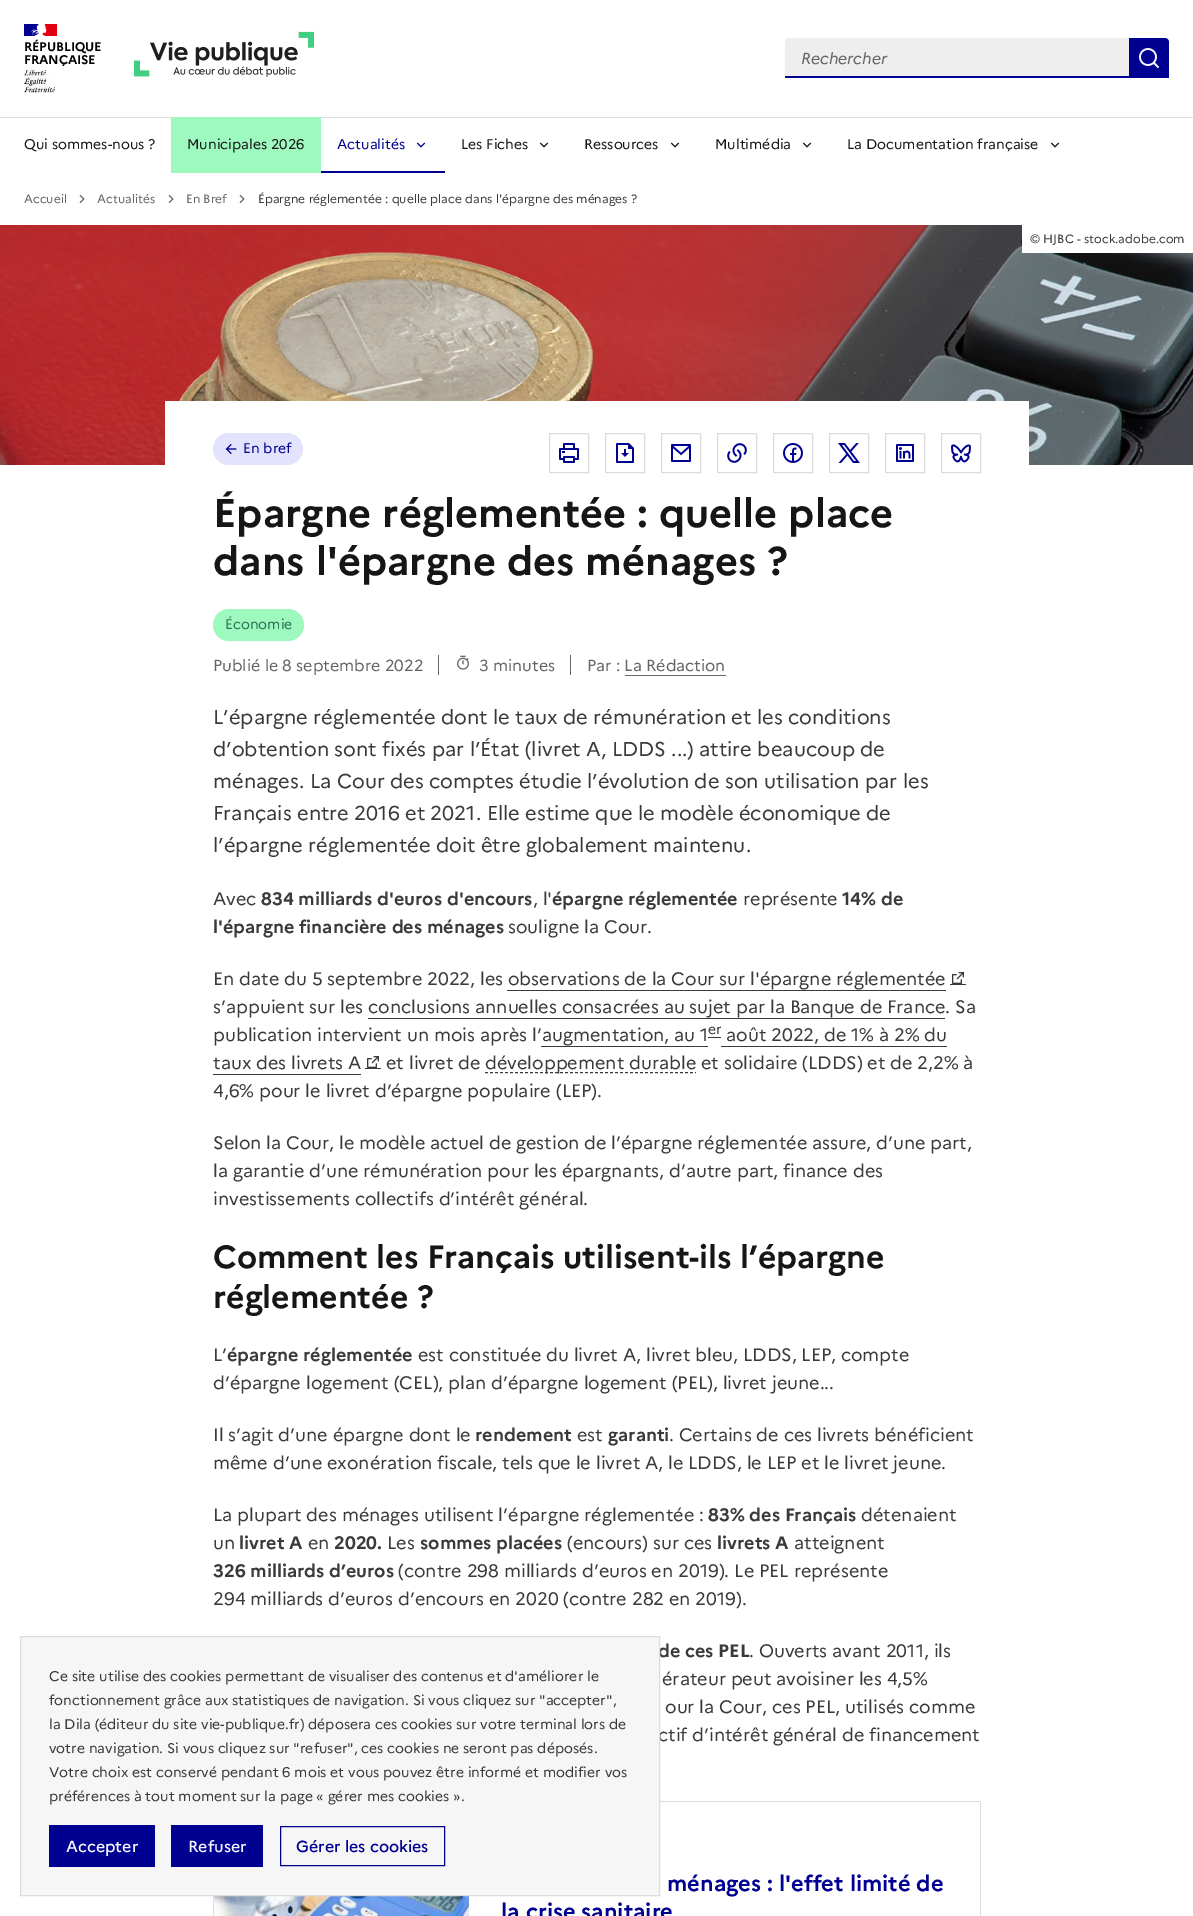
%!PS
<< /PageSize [1193 1916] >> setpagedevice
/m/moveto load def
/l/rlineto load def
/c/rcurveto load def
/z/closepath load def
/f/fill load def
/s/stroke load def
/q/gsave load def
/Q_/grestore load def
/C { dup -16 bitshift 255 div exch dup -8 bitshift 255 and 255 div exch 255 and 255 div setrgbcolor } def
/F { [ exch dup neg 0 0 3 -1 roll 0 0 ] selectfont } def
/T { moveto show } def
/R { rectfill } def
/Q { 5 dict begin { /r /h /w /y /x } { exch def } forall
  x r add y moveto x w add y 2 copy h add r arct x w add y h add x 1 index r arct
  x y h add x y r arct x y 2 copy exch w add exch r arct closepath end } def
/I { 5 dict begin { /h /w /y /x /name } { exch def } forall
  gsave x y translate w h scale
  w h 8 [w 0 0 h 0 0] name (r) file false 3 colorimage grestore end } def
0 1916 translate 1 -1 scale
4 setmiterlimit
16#FFFFFF C
0 0 1193 1916 R
16#000091 C
24 24 16 12 R
16#E1000F C
42 24 15 12 R
(1.rgb) 31 24 16 12 I
/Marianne-Bold 12.5 F
16#000000 C
24 51 m -.1 0 (RÉPUBLIQUE) ashow
24 64 m -.1 0 (FRANÇAISE) ashow
(2.rgb) 24 70 31 23 I
(3.rgb) 134 31 180 46 I
16#EEEEEE C
789 38 m 340 0 l 0 40 l -344 0 l 0 -36 l 0 -2 2 -4 4 -4 c z f
16#000091 C
785 76 344 2 R
/Marianne-Italic 16 F
16#666666 C
(Rechercher) 801 64 T
16#000091 C
1129 38 m 36 0 l 2 0 4 2 4 4 c 0 36 l -40 0 l z f
(4.rgb) 1139 48 21 21 I
16#DDDDDD C
0 117 1193 1 R
/Marianne-Regular 14 F
16#161616 C
(Qui sommes-nous ?) 24 149 T
16#9EF9BE C
171 117 150 56 R
16#161616 C
(Municipales 2026) 187 149 T
16#000091 C
(Actualités) 337 149 T
(5.rgb) 416 142 10 6 I
321 171 124 2 R
16#161616 C
(Les Fiches) 461 149 T
(6.rgb) 539 142 10 6 I
(Ressources) 584 149 T
(6.rgb) 670 142 10 6 I
(Multimédia) 715 149 T
(6.rgb) 802 142 10 6 I
(La Documentation française) 847 149 T
(6.rgb) 1050 142 10 6 I
/Marianne-Regular 12 F
16#666666 C
(Accueil) 24 203 T
(7.rgb) 79 194 6 10 I
(Actualités) 97 203 T
(7.rgb) 168 194 6 10 I
(En Bref) 186 203 T
(7.rgb) 239 194 6 10 I
16#3A3A3A C
(Épargne réglementée : quelle place dans l'épargne des ménages ?) 258 203 T
(8.rgb) 0 225 1193 240 I
16#FFFFFF C
1022 225 171 28 R
16#3A3A3A C
(© HJBC - stock.adobe.com) 1030 243 T
16#FFFFFF C
165 401 864 64 R
16#E3E3FD C
213 433 90 32 16 Q f
(9.rgb) 225 443 12 12 I
/Marianne-Regular 14 F
16#000091 C
(En bref) 243 453 T
16#DDDDDD C
549.5 433.5 39 39 rectstroke
(10.rgb) 559 443 20 20 I
605.5 433.5 39 39 rectstroke
(11.rgb) 616 443 18 20 I
661.5 433.5 39 39 rectstroke
(12.rgb) 671 444 20 18 I
717.5 433.5 39 39 rectstroke
(13.rgb) 727 443 20 20 I
773.5 433.5 39 39 rectstroke
(14.rgb) 783 443 20 20 I
829.5 433.5 39 39 rectstroke
(15.rgb) 838 443 22 20 I
885.5 433.5 39 39 rectstroke
(16.rgb) 896 444 18 18 I
941.5 433.5 39 39 rectstroke
(17.rgb) 951 444 20 19 I
/Marianne-Bold 40 F
16#161616 C
(Épargne réglementée : quelle place) 213 527 T
(dans l'épargne des ménages ?) 213 575 T
16#9EF9BE C
213 609 91 32 16 Q f
/Marianne-Regular 14 F
16#297254 C
(Économie) 225 629 T
/Marianne-Regular 16 F
16#666666 C
(Publié le 8 septembre 2022) 213 671 T
438 655 1 20 R
(18.rgb) 457 655 12 15 I
(3 minutes) 479 671 T
570 655 1 20 R
(Par : La Rédaction) 587 671 T
625 675 101 1 R
/Marianne-Regular 20 F
16#3A3A3A C
(L’épargne réglementée dont le taux de rémunération et les conditions) 213 724 T
(d’obtention sont fixés par l’État \(livret A, LDDS ...\) attire beaucoup de) 213 756 T
(ménages. La Cour des comptes étudie l’évolution de son utilisation par les) 213 788 T
(Français entre 2016 et 2021. Elle estime que le modèle économique de) 213 820 T
(l’épargne réglementée doit être globalement maintenu.) 213 852 T
/Marianne-Regular 18 F
(Avec) 213 905 T
/Marianne-Bold 18 F
(834 milliards d'euros d'encours) 261 905 T
/Marianne-Regular 18 F
(, l') 533 905 T
/Marianne-Bold 18 F
(épargne réglementée) 552 905 T
/Marianne-Regular 18 F
(représente) 743 905 T
/Marianne-Bold 18 F
(14% de) 842 905 T
(l'épargne financière des ménages) 213 933 T
/Marianne-Regular 18 F
(souligne la Cour.) 508 933 T
(En date du 5 septembre 2022, les observations de la Cour sur l'épargne réglementée) 213 985 T
507 990 439 1 R
950 984 16 1 R
(19.rgb) 952 972 12 12 I
(s’appuient sur les conclusions annuelles consacrées au sujet par la Banque de France. Sa) 213 1013 T
368 1018 577 1 R
541 1046 167 1 R
708 1037 13 1 R
721 1046 226 1 R
213 1074 148 1 R
365 1068 16 1 R
/Marianne-Regular 14 F
(er) 708 1034 T
/Marianne-Regular 18 F
(août 2022, de 1% à 2% du) 726 1041 T
(taux des livrets A) 213 1069 T
(19.rgb) 367 1056 12 12 I
(publication intervient un mois après l’augmentation, au 1) 213 1041 T
(et livret de) 386 1069 T
[3 2] 0 setdash
485 1072.5 m 211 0 l s
(développement durable et solidaire \(LDDS\) et de 2,2% à) 485 1069 T
(4,6% pour le livret d’épargne populaire \(LEP\).) 213 1097 T
(Selon la Cour, le modèle actuel de gestion de l’épargne réglementée assure, d’une part,) 213 1149 T
(la garantie d’une rémunération pour les épargnants, d’autre part, finance des) 213 1177 T
(investissements collectifs d’intérêt général.) 213 1205 T
/Marianne-Bold 32 F
16#161616 C
(Comment les Français utilisent-ils l’épargne) 213 1268 T
(réglementée ?) 213 1308 T
/Marianne-Regular 18 F
16#3A3A3A C
(L’) 213 1361 T
/Marianne-Bold 18 F
(épargne réglementée) 227 1361 T
/Marianne-Regular 18 F
(est constituée du livret A, livret bleu, LDDS, LEP, compte) 418 1361 T
(d’épargne logement \(CEL\), plan d’épargne logement \(PEL\), livret jeune...) 213 1389 T
(Il s’agit d’une épargne dont le) 213 1441 T
/Marianne-Bold 18 F
(rendement) 475 1441 T
/Marianne-Regular 18 F
(est) 577 1441 T
/Marianne-Bold 18 F
(garanti) 608 1441 T
/Marianne-Regular 18 F
(. Certains de ces livrets bénéficient) 669 1441 T
(même d’une exonération fiscale, tels que le livret A, le LDDS, le LEP et le livret jeune.) 213 1469 T
(La plupart des ménages utilisent l’épargne réglementée :) 213 1521 T
/Marianne-Bold 18 F
(83% des Français) 708 1521 T
/Marianne-Regular 18 F
(détenaient) 861 1521 T
(un) 213 1549 T
/Marianne-Bold 18 F
(livret A) 239 1549 T
/Marianne-Regular 18 F
(en) 308 1549 T
/Marianne-Bold 18 F
(2020.) 334 1549 T
/Marianne-Regular 18 F
(Les) 387 1549 T
/Marianne-Bold 18 F
(sommes placées) 420 1549 T
/Marianne-Regular 18 F
(\(encours\) sur ces) 567 1549 T
/Marianne-Bold 18 F
(livrets A) 717 1549 T
/Marianne-Regular 18 F
(atteignent) 794 1549 T
/Marianne-Bold 18 F
(326 milliards d’euros) 213 1577 T
/Marianne-Regular 18 F
(\(contre 298 milliards d’euros en 2019\). Le PEL représente) 398 1577 T
(294 milliards d’euros d’encours en 2020 \(contre 282 en 2019\).) 213 1605 T
/Marianne-Bold 18 F
(de ces PEL) 658 1657 T
/Marianne-Regular 18 F
(. Ouverts avant 2011, ils) 749 1657 T
(érateur peut avoisiner les 4,5%) 662 1685 T
(our la Cour, ces PEL, utilisés comme) 665 1713 T
(ctif d’intérêt général de financement) 658 1741 T
16#DDDDDD C
660 1801 321 1 R
980 1801 1 115 R
213 1896 1 20 R
(20.rgb) 214 1896 255 20 I
/Marianne-Bold 22 F
16#000091 C
(ménages : l'effet limité de) 667 1891 T
(la crise sanitaire) 501 1919 T
16#F6F6F6 C
20.5 1636.5 m 639 0 l 0 259 l -639 0 l z q f Q_
16#DDDDDD C
[] 0 setdash
s
/Marianne-Regular 14 F
16#3A3A3A C
(Ce site utilise des cookies permettant de visualiser des contenus et d'améliorer le) 49 1681 T
(fonctionnement grâce aux statistiques de navigation. Si vous cliquez sur "accepter",) 49 1705 T
(la Dila \(éditeur du site vie-publique.fr\) déposera ces cookies sur votre terminal lors de) 49 1729 T
(votre navigation. Si vous cliquez sur "refuser", ces cookies ne seront pas déposés.) 49 1753 T
(Votre choix est conservé pendant 6 mois et vous pouvez être informé et modifier vos) 49 1777 T
(préférences à tout moment sur la page « gérer mes cookies ».) 49 1801 T
16#000091 C
49 1825 106 42 R
/Marianne-Medium 16 F
16#F5F5FE C
(Accepter) 66 1852 T
16#000091 C
171 1825 92 42 R
16#F5F5FE C
(Refuser) 188 1852 T
16#000091 C
280.5 1826.5 164 39 rectstroke
(Gérer les cookies) 296 1852 T
showpage
